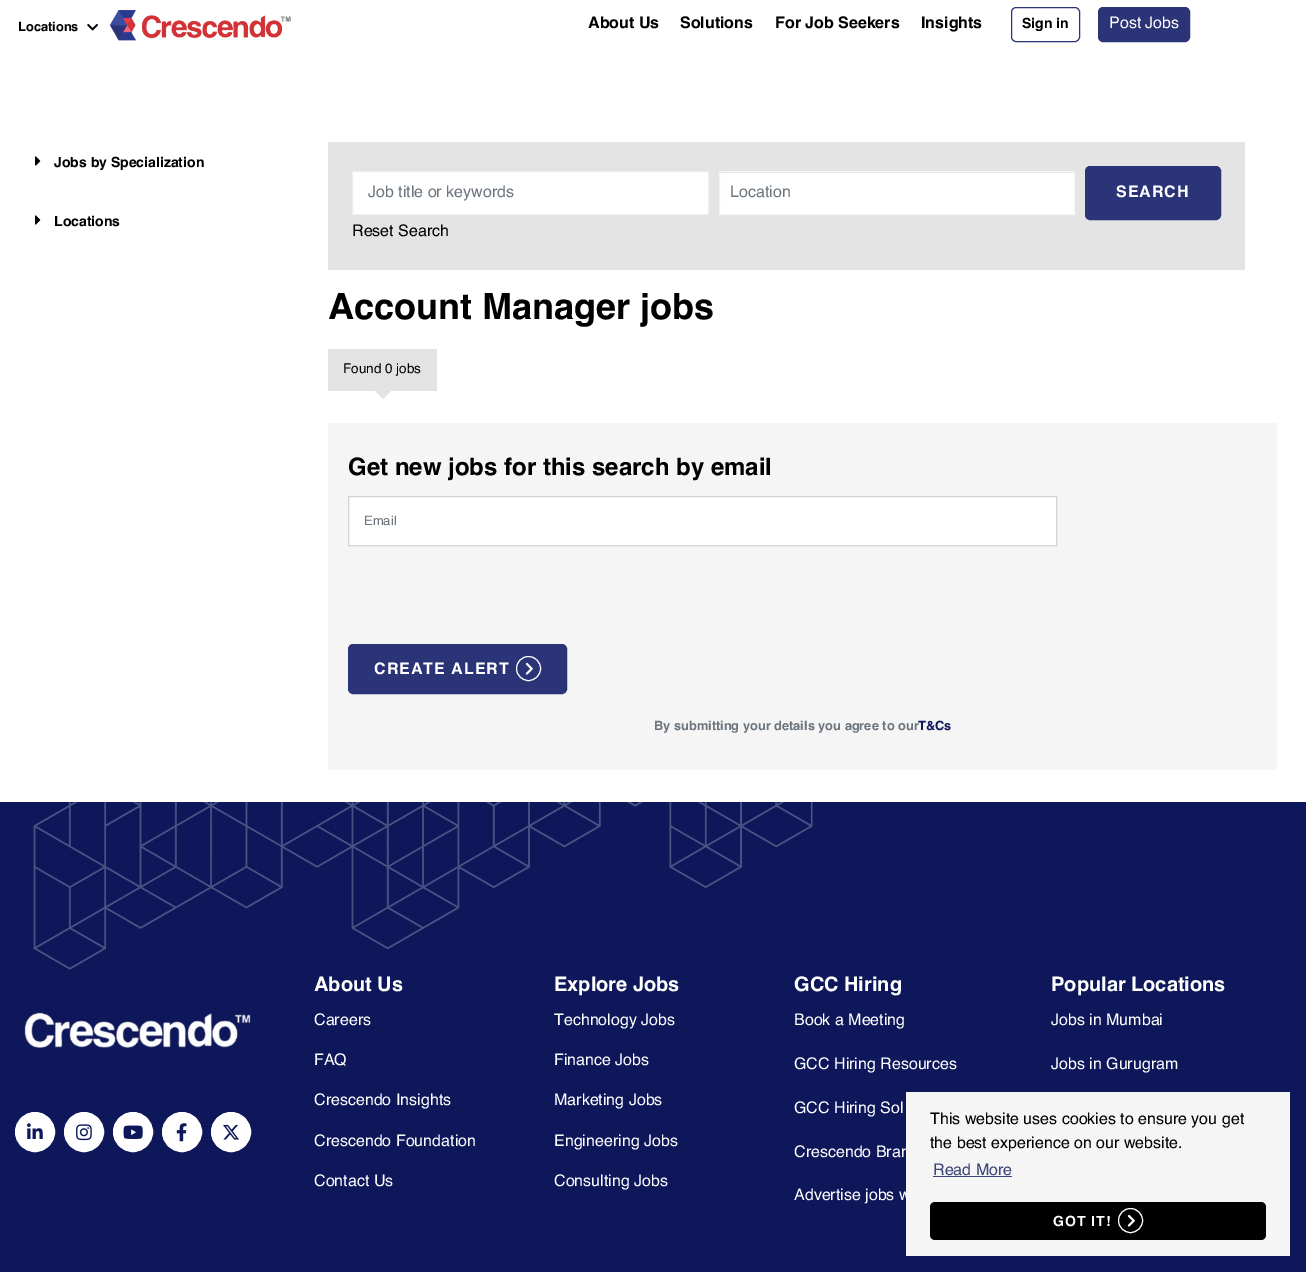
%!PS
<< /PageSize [1306 1272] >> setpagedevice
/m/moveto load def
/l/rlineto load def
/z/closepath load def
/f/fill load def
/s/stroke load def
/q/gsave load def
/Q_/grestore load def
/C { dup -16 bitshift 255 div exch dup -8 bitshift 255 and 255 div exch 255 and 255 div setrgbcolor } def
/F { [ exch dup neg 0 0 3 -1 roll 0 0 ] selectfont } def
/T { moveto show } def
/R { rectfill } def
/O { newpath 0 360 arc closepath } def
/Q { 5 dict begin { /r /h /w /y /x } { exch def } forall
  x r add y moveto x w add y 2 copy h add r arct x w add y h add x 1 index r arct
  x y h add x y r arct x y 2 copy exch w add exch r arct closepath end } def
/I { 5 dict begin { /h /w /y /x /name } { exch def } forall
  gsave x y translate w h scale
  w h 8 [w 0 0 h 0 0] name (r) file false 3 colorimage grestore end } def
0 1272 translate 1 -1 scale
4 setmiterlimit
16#FFFFFF C
0 0 1306 1272 R
/Helvetica-Bold 12.8 F
16#000000 C
(Locations) 18 31 T
(1.rgb) 87 23 11 8 I
(2.rgb) 109 10 182 31 I
/Helvetica-Bold 16 F
(About Us) 588 28 T
(Solutions) 680 28 T
(For Job Seekers) 775 28 T
(Insights) 921 28 T
16#2B3476 C
1011.5 7.5 68 34 4.5 Q s
/Helvetica-Bold 14 F
16#000000 C
(Sign in) 1022 28 T
16#2B3476 C
1098.5 7.5 91 34 4.5 Q q f Q_
s
/Helvetica-Regular 16 F
16#FFFFFF C
(Post Jobs) 1109 28 T
(3.rgb) 35 156 6 10 I
/Helvetica-Bold 14 F
16#000000 C
(Jobs by Specialization) 54 167 T
(3.rgb) 35 215 6 10 I
(Locations) 54 226 T
16#E4E4E4 C
328 142 917 128 R
16#FFFFFF C
352.5 171.5 m 356 0 l 0 43 l -356 0 l z q f Q_
16#EEEEEE C
s
/Helvetica-Regular 16 F
16#6C757D C
(Job title or keywords) 368 197 T
16#FFFFFF C
720 173 354 41 R
16#F5F5F5 C
719.5 171.5 355 43 rectstroke
16#6C757D C
(Location) 730 197 T
16#2B3476 C
1085.5 166.5 135 53 4.5 Q q f Q_
s
/Helvetica-Bold 16 F
16#FFFFFF C
1116 197 m 1 0 (SEARCH) ashow
/Helvetica-Regular 16 F
16#000000 C
(Reset Search) 352 236 T
/Helvetica-Bold 36 F
(Account Manager jobs) 328 319 T
16#E3E3E3 C
328 349 109 42 R
/Helvetica-Regular 13.5 F
16#000000 C
(Found 0 jobs) 343 373 T
16#E3E3E3 C
375 391 m 16 0 l -8 8 l z f
16#F5F5F5 C
328 423 949 347 R
/Helvetica-Bold 24 F
16#000000 C
(Get new jobs for this search by email) 348 475 T
16#FFFFFF C
348.5 496.5 m 708 0 l 0 49 l -708 0 l z q f Q_
16#CED4DA C
s
/Helvetica-Regular 13 F
16#6C757D C
(Email) 364 525 T
16#2B3476 C
348.5 644.5 218 49 4.5 Q q f Q_
s
/Helvetica-Bold 16 F
16#FFFFFF C
374 674 m 1 0 (CREATE ALERT) ashow
528.5 668.5 12 O s
(4.rgb) 525 662 8 13 I
/Helvetica-Bold 12.8 F
16#6C757D C
(By submitting your details you agree to our) 654 730 T
16#0E1759 C
(T&Cs) 918 730 T
0 802 1306 470 R
(5.rgb) 33 802 780 168 I
(6.rgb) 24 1012 227 37 I
16#FFFFFF C
35 1132 19.5 O q f Q_
s
(7.rgb) 27 1123 16 16 I
84 1132 19.5 O q f Q_
s
(8.rgb) 76 1124 16 17 I
133 1132 19.5 O q f Q_
s
(9.rgb) 123 1125 20 14 I
182 1132 19.5 O q f Q_
s
(10.rgb) 176 1123 11 19 I
231 1132 19.5 O q f Q_
s
(11.rgb) 223 1124 16 16 I
/Helvetica-Bold 20 F
(About Us) 314 991 T
/Helvetica-Regular 16 F
(Careers) 314 1025 T
(FAQ) 314 1065 T
(Crescendo Insights) 314 1105 T
(Crescendo Foundation) 314 1146 T
(Contact Us) 314 1186 T
/Helvetica-Bold 20 F
(Explore Jobs) 554 991 T
/Helvetica-Regular 16 F
(Technology Jobs) 554 1025 T
(Finance Jobs) 554 1065 T
(Marketing Jobs) 554 1105 T
(Engineering Jobs) 554 1146 T
(Consulting Jobs) 554 1186 T
/Helvetica-Bold 20 F
(GCC Hiring) 794 991 T
/Helvetica-Regular 16 F
(Book a Meeting) 794 1025 T
(GCC Hiring Resources) 794 1069 T
(GCC Hiring Sol) 794 1113 T
(Crescendo Bran) 794 1157 T
(Advertise jobs w) 794 1200 T
/Helvetica-Bold 20 F
(Popular Locations) 1051 991 T
/Helvetica-Regular 16 F
(Jobs in Mumbai) 1051 1025 T
(Jobs in Gurugram) 1051 1069 T
16#F5F5F5 C
906 1092 384 164 R
16#000000 C
(This website uses cookies to ensure you get) 930 1124 T
(the best experience on our website.) 930 1148 T
16#3C4378 C
(Read More) 933 1175 T
933 1176 79 1 R
16#000000 C
930 1202 336 38 5 Q f
/Helvetica-Bold 14 F
16#FFFFFF C
1053 1226 m 1 0 (GOT IT!) ashow
1130.5 1220.5 12 O s
(12.rgb) 1127 1214 8 13 I
showpage
